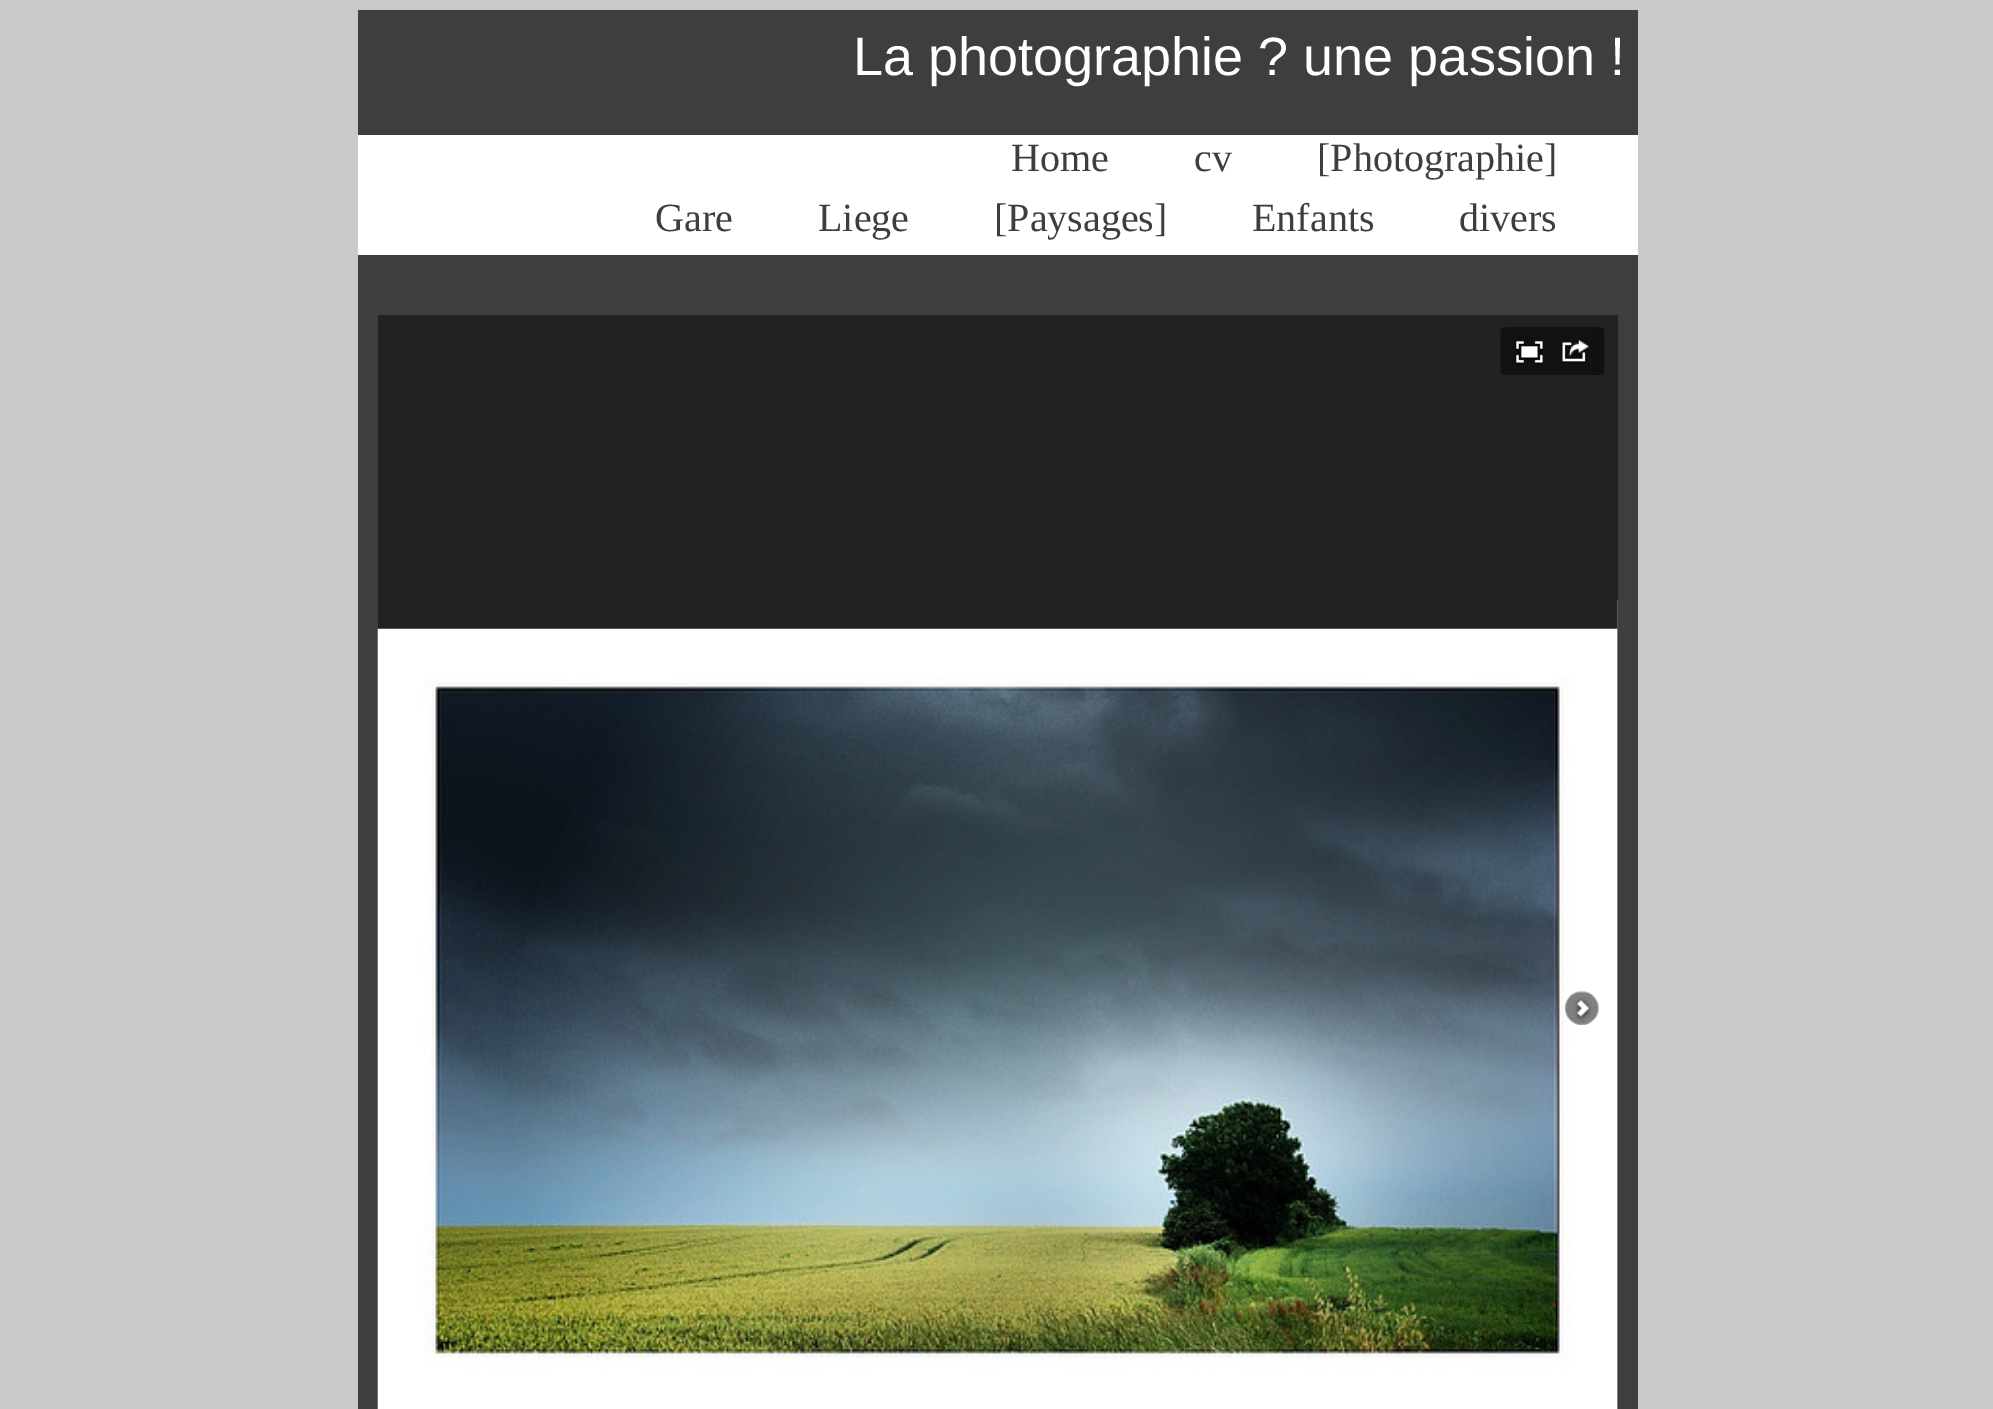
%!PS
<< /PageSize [1993 1409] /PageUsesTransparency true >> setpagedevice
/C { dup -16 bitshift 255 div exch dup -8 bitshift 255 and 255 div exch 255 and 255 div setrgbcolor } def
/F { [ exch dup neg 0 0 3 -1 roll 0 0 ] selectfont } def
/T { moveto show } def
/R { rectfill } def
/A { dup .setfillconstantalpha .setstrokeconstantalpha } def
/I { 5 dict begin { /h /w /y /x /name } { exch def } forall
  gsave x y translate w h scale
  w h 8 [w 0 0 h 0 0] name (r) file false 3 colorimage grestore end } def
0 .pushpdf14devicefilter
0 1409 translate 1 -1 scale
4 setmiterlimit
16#C9C9C9 C
0 0 1993 1409 R
16#3E3E3E C
358 10 1280 125 R
/LiberationSans-Regular 54 F
16#FFFFFF C
(La photographie ? une passion !) 853 75 T
358 135 1280 120 R
/LiberationSerif-Regular 40 F
16#3E3E3E C
(Home) 1011 171 T
(cv) 1194 171 T
([Photographie]) 1317 171 T
(Gare) 655 231 T
(Liege) 818 231 T
([Paysages]) 994 231 T
(Enfants) 1252 231 T
(divers) 1459 231 T
358 255 1280 1154 R
16#222222 C
378 315 1240 1094 R
(1.rgb) 1500 327 6 48 I
(4.rgb) 1598 327 7 48 I
0.5 A
16#000000 C
1506 327 93 48 R
1 A
(2.rgb) 1515 341 28 24 I
(3.rgb) 1561 339 28 25 I
(5.rgb) 377 628 1241 781 I
0.25 A
16#FFFFFF C
1617 600 1 809 R
1 A
(6.rgb) 1565 991 34 34 I
.poppdf14devicefilter showpage
